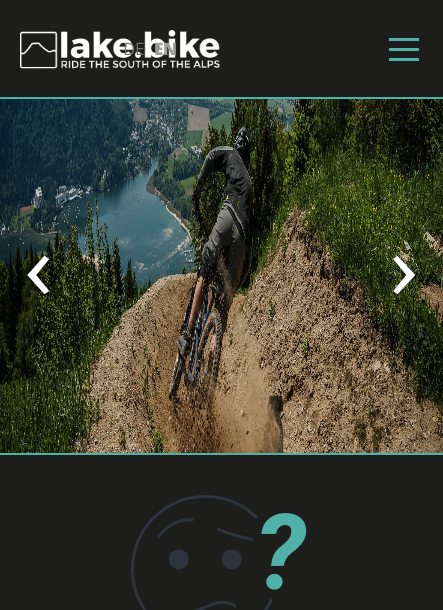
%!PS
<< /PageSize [443 610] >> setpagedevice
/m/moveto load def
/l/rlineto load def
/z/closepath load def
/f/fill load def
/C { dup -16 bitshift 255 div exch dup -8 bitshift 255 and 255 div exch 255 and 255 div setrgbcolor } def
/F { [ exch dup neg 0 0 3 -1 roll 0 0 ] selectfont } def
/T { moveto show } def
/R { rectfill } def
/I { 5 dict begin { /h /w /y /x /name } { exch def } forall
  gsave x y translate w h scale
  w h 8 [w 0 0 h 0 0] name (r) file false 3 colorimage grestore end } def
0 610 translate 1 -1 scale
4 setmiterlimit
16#1D1D1B C
0 0 443 610 R
16#50B1A9 C
0 97 443 2 R
(1.rgb) 20 30 200 39 I
/OpenSans-Regular 17 F
16#747473 C
(DE) 123 55 T
/OpenSans-ExtraBold 17 F
16#9E9E9D C
(EN) 154 55 T
16#50B1A9 C
389 48 30 3 R
389 38 30 3 R
389 58 30 3 R
0 453 443 2 R
(2.rgb) 0 99 443 354 I
16#FFFFFF C
44.5 256 m -17 19 l 17 19 l 4.5 -3 l -13 -16 l 13 -16 l z f
397.5 294 m 17.5 -19 l -17.5 -19 l -4 3 l 13 16 l -13 16 l z f
(3.rgb) 131 495 176 115 I
showpage
